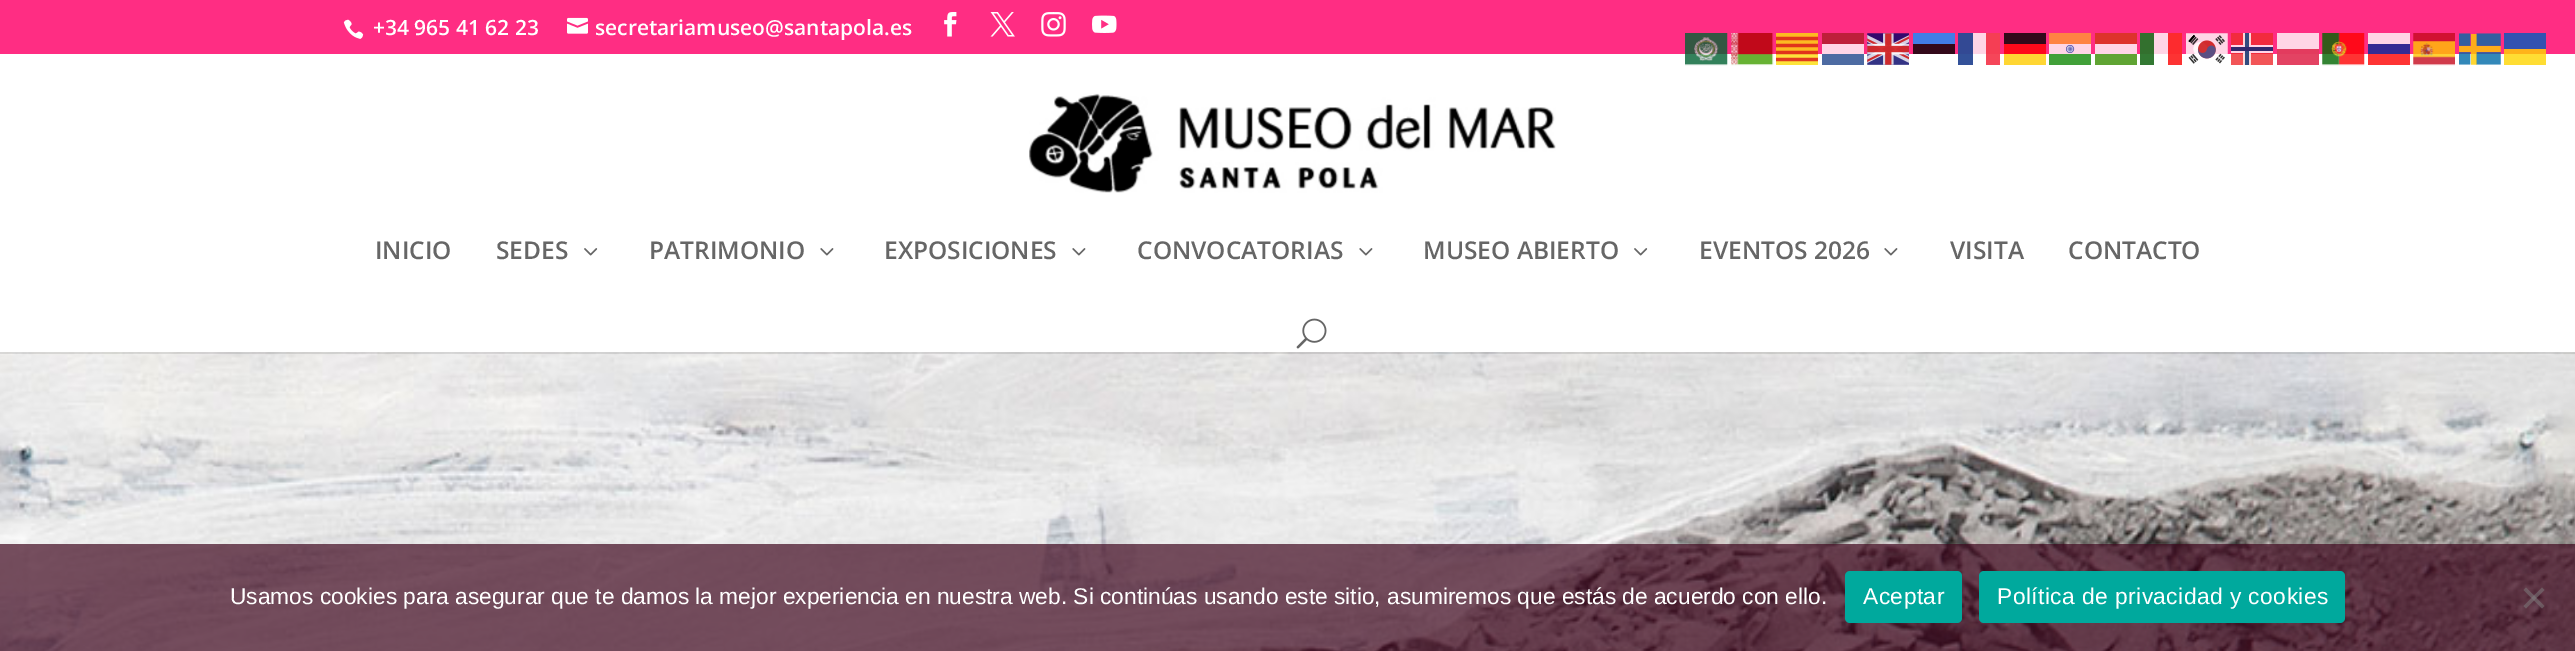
%!PS
<< /PageSize [2575 651] /PageUsesTransparency true >> setpagedevice
/m/moveto load def
/l/rlineto load def
/z/closepath load def
/f/fill load def
/s/stroke load def
/w/setlinewidth load def
/C { dup -16 bitshift 255 div exch dup -8 bitshift 255 and 255 div exch 255 and 255 div setrgbcolor } def
/F { [ exch dup neg 0 0 3 -1 roll 0 0 ] selectfont } def
/T { moveto show } def
/R { rectfill } def
/A { dup .setfillconstantalpha .setstrokeconstantalpha } def
/Q { 5 dict begin { /r /h /w /y /x } { exch def } forall
  x r add y moveto x w add y 2 copy h add r arct x w add y h add x 1 index r arct
  x y h add x y r arct x y 2 copy exch w add exch r arct closepath end } def
/I { 5 dict begin { /h /w /y /x /name } { exch def } forall
  gsave x y translate w h scale
  w h 8 [w 0 0 h 0 0] name (r) file false 3 colorimage grestore end } def
0 .pushpdf14devicefilter
0 651 translate 1 -1 scale
4 setmiterlimit
16#FFFFFF C
0 0 2575 651 R
16#FF2D83 C
0 0 2575 54 R
16#FFB31A C
2504 49 42 5 R
16#FFD5E6 C
2368 33 42 11 R
16#342B93 C
2368 44 42 10 R
16#FFD5E6 C
2277 33 42 16 R
16#E33B5E C
2277 49 42 5 R
16#F22B3E C
2231 33 42 21 R
16#FCD5D8 C
2243 33 8 21 R
16#324B7E C
2245 33 4 21 R
16#FFD5E6 C
2154 33 14 21 R
16#FD2B2E C
2168 33 14 21 R
16#33702E C
2140 33 14 21 R
16#FFD5E6 C
2095 44 42 10 R
1973 33 13 21 R
16#F53E54 C
1986 33 14 21 R
16#334994 C
1958 33 15 21 R
16#33091A C
1913 44 42 10 R
16#FFD5E6 C
1822 44 42 10 R
16#FDBA21 C
1776 33 42 21 R
(1.rgb) 343 19 21 20 I
/OpenSans-SemiBold 21 F
16#FFFFFF C
(+34 965 41 62 23) 373 35 T
(2.rgb) 567 17 21 17 I
(secretariamuseo@santapola.es) 595 35 T
(3.rgb) 944 12 13 25 I
(4.rgb) 990 12 25 25 I
(5.rgb) 1041 12 25 25 I
(6.rgb) 1092 15 25 18 I
(11.rgb) 0 352 2575 299 I
0.1 A
16#000000 C
0 352 2575 2 R
1 A
16#FFDD33 C
2504 54 42 11 R
16#E34363 C
2277 54 42 11 R
16#F25557 C
2231 54 42 11 R
16#FCDDDD C
2243 54 8 11 R
16#324C7F C
2245 54 4 11 R
16#FD3333 C
2168 54 14 11 R
16#337933 C
2140 54 14 11 R
16#F54659 C
1986 54 14 11 R
16#335199 C
1958 54 15 11 R
16#FDE43A C
1776 54 42 11 R
(7.rgb) 1029 93 527 100 I
/OpenSans-SemiBold 24.5 F
16#666666 C
(INICIO) 375 259 T
(SEDES) 496 259 T
(8.rgb) 584 248 14 8 I
(PATRIMONIO) 649 259 T
(9.rgb) 820 248 14 8 I
(EXPOSICIONES) 884 259 T
(9.rgb) 1072 248 14 8 I
(CONVOCATORIAS) 1137 259 T
(9.rgb) 1359 248 14 8 I
(MUSEO ABIERTO) 1423 259 T
(8.rgb) 1634 248 14 8 I
(EVENTOS 2026) 1699 259 T
(9.rgb) 1884 248 14 8 I
(VISITA) 1950 259 T
(CONTACTO) 2068 259 T
(10.rgb) 1296 318 31 31 I
(12.rgb) 1685 33 43 33 I
(13.rgb) 1731 33 43 33 I
0.8 A
16#DA121A C
3.3 w
1776 38.5 m 42 0 l 1818 45.5 m -42 0 l 1776 52.5 m 42 0 l 1818 59.5 m -42 0 l s
1 A
16#BE1F3A C
1822 33 42 11 R
(14.rgb) 1867 33 42 32 I
16#417DE6 C
1913 33 42 11 R
16#33091A C
2004 33 42 11 R
(15.rgb) 2049 33 42 32 I
16#DD332C C
2095 33 42 11 R
(16.rgb) 2186 33 42 31 I
(17.rgb) 2322 33 43 33 I
(18.rgb) 2413 33 42 33 I
(19.rgb) 2459 33 42 32 I
16#3352B0 C
2504 33 42 16 R
16#FF091A C
2004 44 42 10 R
16#FFD5E6 C
2231 45 42 8 R
16#334B81 C
2245 45 4 8 R
16#33296D C
2231 47 42 4 R
16#4D6BA2 C
1822 54 42 11 R
16#FFD633 C
2004 54 42 11 R
16#60A433 C
2095 54 42 11 R
16#FE3434 C
2368 54 42 11 R
0.7 A
16#3F071E C
0 544 2575 107 R
/LiberationSans-Regular 22.75 F
1 A
16#FFFFFF C
(Usamos cookies para asegurar que te damos la mejor experiencia en nuestra web. Si continúas usando este sitio, asumiremos que estás de acuerdo con ello.) 230 604 T
16#00A99D C
1845 571 117 52 5 Q f
16#FFFFFF C
1863 604 m .45 0 (Aceptar) ashow
16#00A99D C
1979 571 366 52 5 Q f
16#FFFFFF C
1997 604 m .45 0 (Política de privacidad y cookies) ashow
0.5 A
16#808080 C
2542 587.5 m 2.5 2.5 l -18.5 18.5 l -2.5 -2.5 l z f
2523.5 590 m 2.5 -2.5 l 18.5 18.5 l -2.5 2.5 l z f
.poppdf14devicefilter showpage
